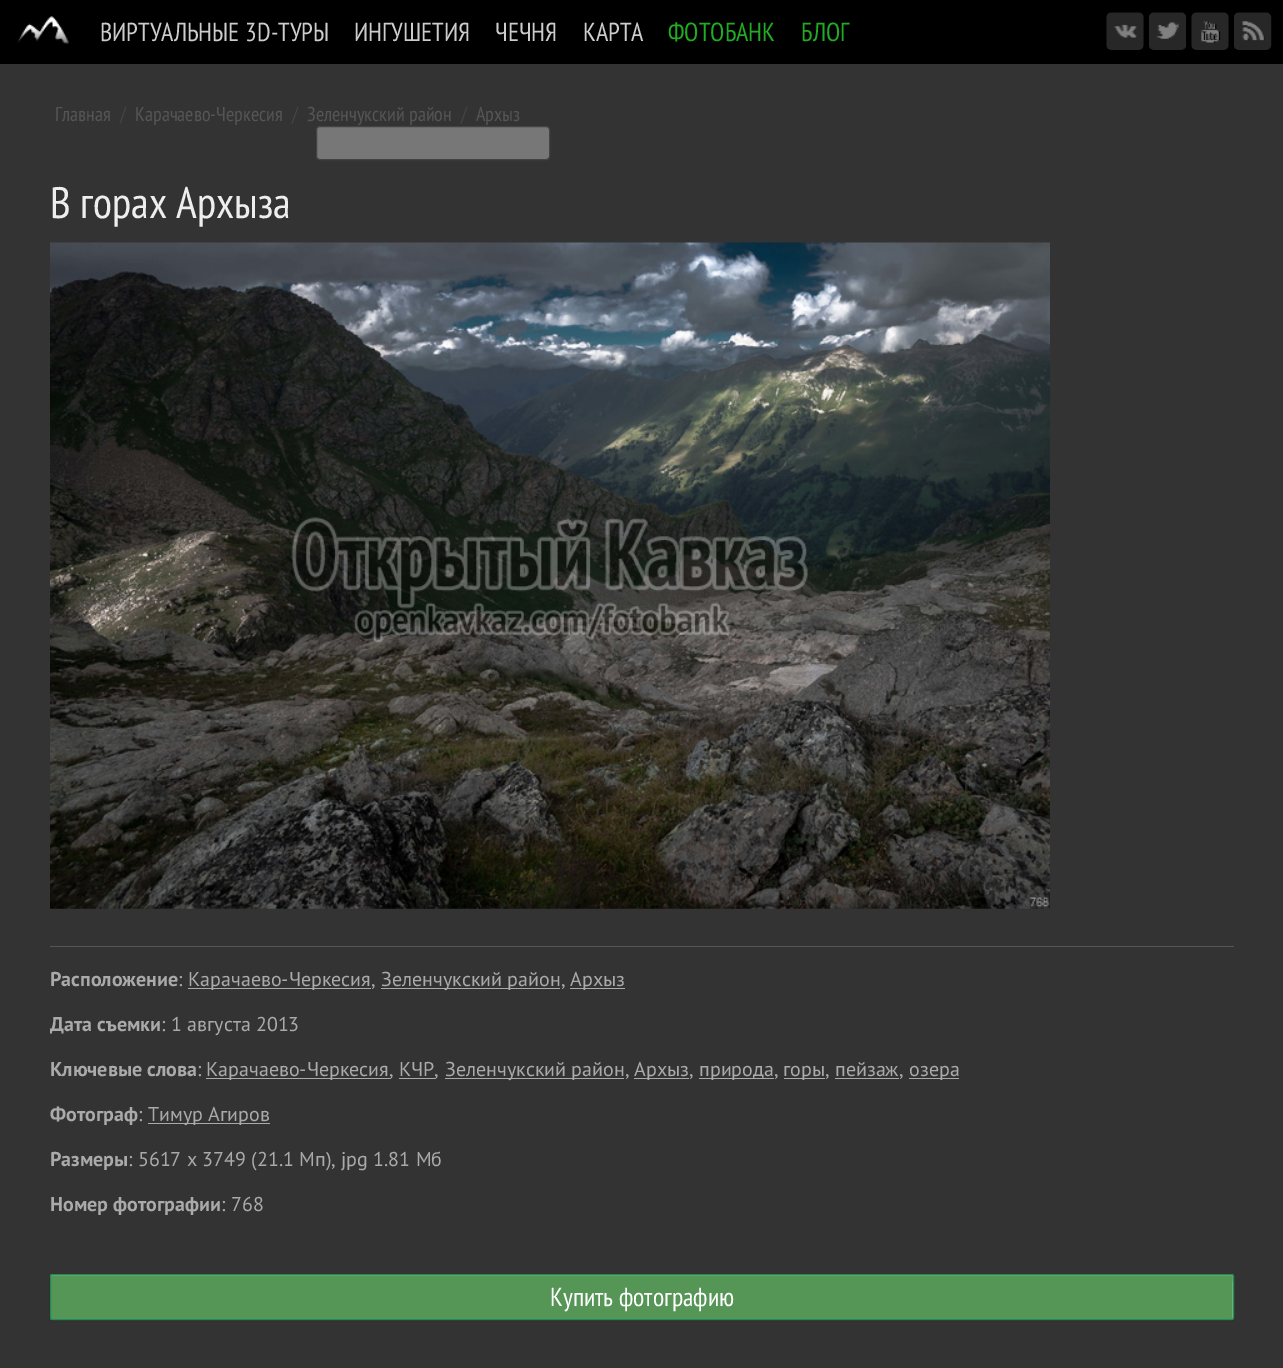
%!PS
<< /PageSize [1283 1368] /PageUsesTransparency true >> setpagedevice
/m/moveto load def
/l/rlineto load def
/z/closepath load def
/f/fill load def
/s/stroke load def
/q/gsave load def
/Q_/grestore load def
/C { dup -16 bitshift 255 div exch dup -8 bitshift 255 and 255 div exch 255 and 255 div setrgbcolor } def
/F { [ exch dup neg 0 0 3 -1 roll 0 0 ] selectfont } def
/T { moveto show } def
/R { rectfill } def
/A { dup .setfillconstantalpha .setstrokeconstantalpha } def
/Q { 5 dict begin { /r /h /w /y /x } { exch def } forall
  x r add y moveto x w add y 2 copy h add r arct x w add y h add x 1 index r arct
  x y h add x y r arct x y 2 copy exch w add exch r arct closepath end } def
/S { 12 dict begin { /a /b /q /h /w /y /x } { exch def } forall gsave /was 0 def
  9 -2 -9 { dup b mul 4 div /e exch def 1 sub .425 mul 2.718 exch exp 1 add a .99 .min exch div /now exch def
    1 1 now sub 1 was sub div sub A /was now def
    w h .min e 2 mul add 0 gt { x e sub y e sub w e 2 mul add h e 2 mul add
      q e add b .6 mul add w h .min 2 div e add .min 0 .max Q fill } if } for grestore end } def
/I { 5 dict begin { /h /w /y /x /name } { exch def } forall
  gsave x y translate w h scale
  w h 8 [w 0 0 h 0 0] name (r) file false 3 colorimage grestore end } def
0 .pushpdf14devicefilter
0 1368 translate 1 -1 scale
4 setmiterlimit
16#000000 C
0 0 1283 1368 R
(1.rgb) 17 16 52 28 I
/PTSansNarrow-Regular 26 F
16#CCCCCC C
(ВИРТУАЛЬНЫЕ 3D-ТУРЫ) 100 41 T
(ИНГУШЕТИЯ) 354 41 T
(ЧЕЧНЯ) 495 41 T
(КАРТА) 583 41 T
16#22AA22 C
(ФОТОБАНК) 668 41 T
(БЛОГ) 801 41 T
(2.rgb) 1106 12 38 38 I
(3.rgb) 1149 12 37 38 I
(4.rgb) 1191 12 38 38 I
(5.rgb) 1234 12 38 38 I
16#333333 C
0 64 1283 1304 R
/PTSansNarrow-Regular 20 F
16#555555 C
(Главная) 55 121 T
16#444444 C
(/) 120 121 T
16#555555 C
(Карачаево-Черкесия) 135 121 T
16#444444 C
(/) 292 121 T
16#555555 C
(Зеленчукский район) 307 121 T
16#444444 C
(/) 461 121 T
16#555555 C
(Архыз) 476 121 T
16#777777 C
316.5 126.5 233 33 3.5 Q q f Q_
16#444444 C
s
/PTSansNarrow-Regular 44 F
16#EEEEEE C
(В горах Архыза) 50 218 T
(6.rgb) 50 242 1000 667 I
16#555555 C
50 946 1184 1 R
/PTSans-Bold 20 F
16#AAAAAA C
(Расположение) 50 986 T
/PTSans-Regular 20 F
(:) 178 986 T
188 988 183 1 R
(Карачаево-Черкесия,) 188 986 T
381 988 179 1 R
(Зеленчукский район,) 381 986 T
570 988 55 1 R
(Архыз) 570 986 T
/PTSans-Bold 20 F
(Дата съемки) 50 1031 T
/PTSans-Regular 20 F
(: 1 августа 2013) 161 1031 T
/PTSans-Bold 20 F
(Ключевые слова) 50 1076 T
/PTSans-Regular 20 F
(:) 197 1076 T
206 1078 184 1 R
(Карачаево-Черкесия, КЧР,) 206 1076 T
445 1078 179 1 R
(Зеленчукский район,) 445 1076 T
634 1078 55 1 R
(Архыз,) 634 1076 T
699 1078 75 1 R
(природа,) 699 1076 T
784 1078 41 1 R
(горы, пейзаж,) 783 1076 T
909 1078 50 1 R
(озера) 909 1076 T
399 1078 36 1 R
835 1078 64 1 R
/PTSans-Bold 20 F
(Фотограф) 50 1121 T
/PTSans-Regular 20 F
(:) 138 1121 T
148 1123 122 1 R
(Тимур Агиров) 148 1121 T
/PTSans-Bold 20 F
(Размеры) 50 1166 T
/PTSans-Regular 20 F
(: 5617 x 3749 \(21.1 Мп\), jpg 1.81 Мб) 128 1166 T
/PTSans-Bold 20 F
(Номер фотографии) 50 1211 T
/PTSans-Regular 20 F
(: 768) 221 1211 T
16#000000 C
50 1275 1184 46 2.5 .5 .2 S
16#559555 C
50 1274 1184 46 2.5 Q f
16#77AA77 C
52 1276 m 1180 0 l 1 2 l -1 6 l 0 35 l 1 -1 l 0 -42 l -1 -1 l -1180 0 l -1 1 l 0 1 l z f
16#208D53 C
50.5 1274.5 1183 45 2 Q s
/PTSansNarrow-Regular 26 F
16#FFFFFF C
(Купить фотографию) 550 1306 T
.poppdf14devicefilter showpage
